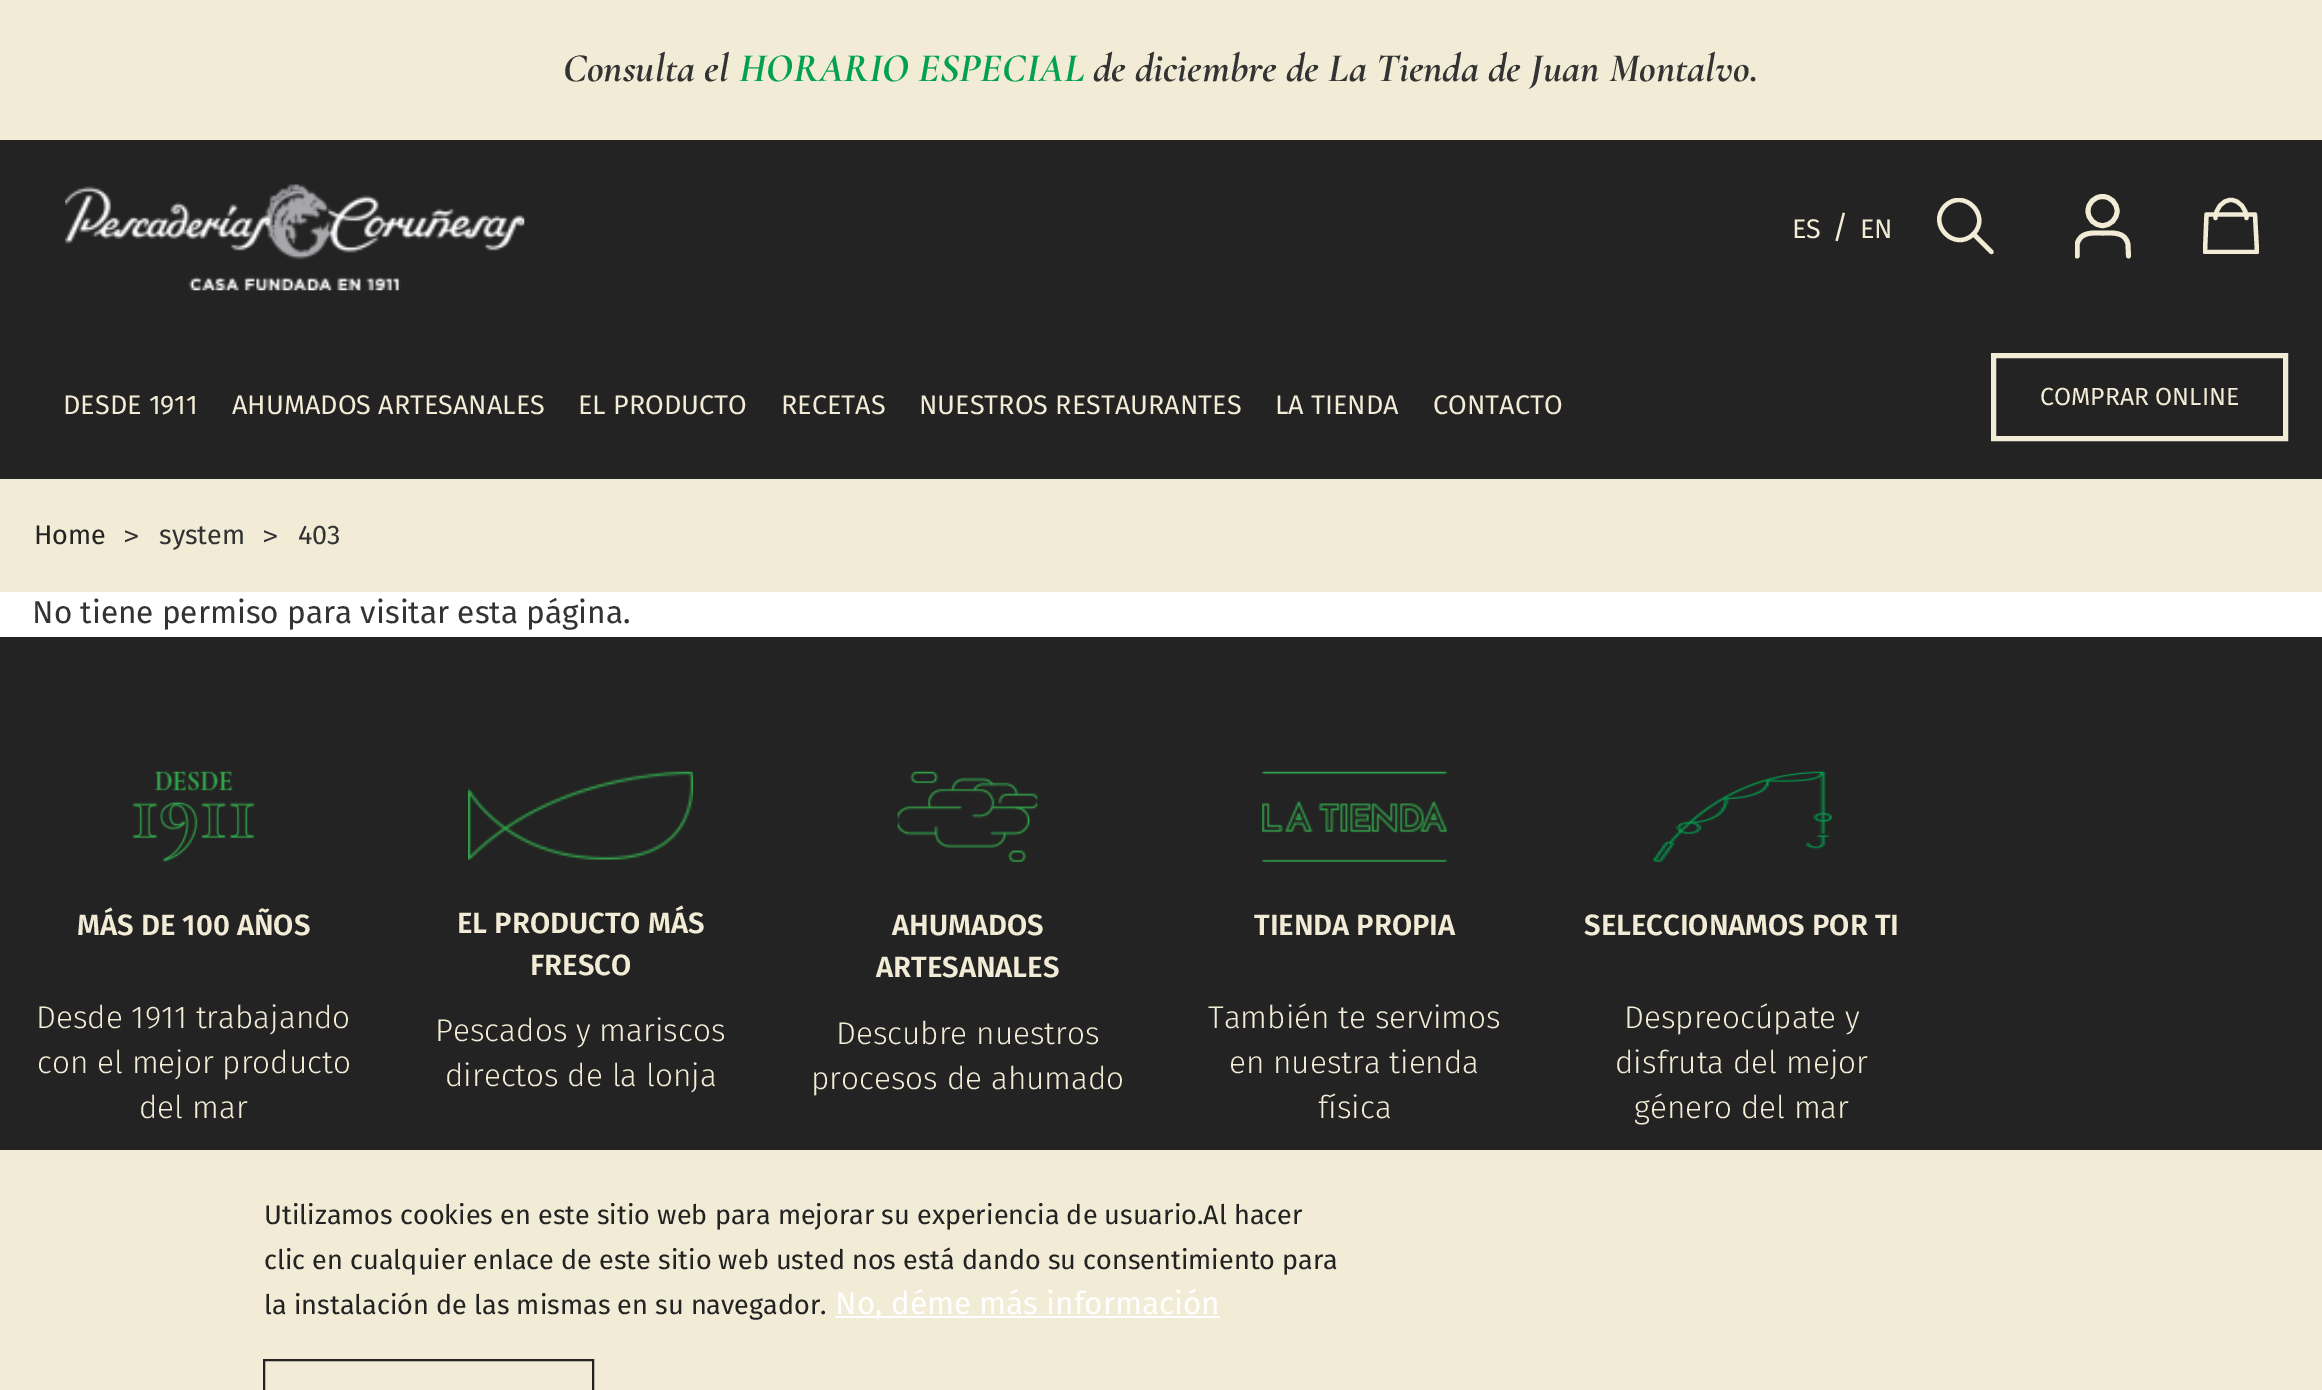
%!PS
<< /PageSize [2322 1390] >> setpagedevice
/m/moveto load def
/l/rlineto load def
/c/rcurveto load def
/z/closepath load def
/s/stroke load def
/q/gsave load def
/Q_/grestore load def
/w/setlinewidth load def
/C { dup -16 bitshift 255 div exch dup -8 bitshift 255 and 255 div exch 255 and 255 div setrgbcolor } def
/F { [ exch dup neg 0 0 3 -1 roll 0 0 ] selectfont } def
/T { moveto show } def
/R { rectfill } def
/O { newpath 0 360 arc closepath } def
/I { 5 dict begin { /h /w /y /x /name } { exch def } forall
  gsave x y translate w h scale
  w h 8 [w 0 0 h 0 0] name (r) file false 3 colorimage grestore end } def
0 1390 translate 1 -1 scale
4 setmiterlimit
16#FFFFFF C
0 0 2322 1390 R
16#F2EBD6 C
0 0 2322 140 R
/CormorantGaramond-LightItalic 40.5 F
16#333333 C
(Consulta el) 563 81 T
16#01A14F C
(HORARIO ESPECIAL) 739 81 T
16#333333 C
(de diciembre de La Tienda de Juan Montalvo.) 1093 81 T
16#232323 C
0 140 2322 339 R
(1.rgb) 65 184 460 107 I
/FiraSans-Regular 27 F
16#F2EBD6 C
(ES) 1792 238 T
/FiraSans-Regular 31.5 F
(/) 1832 238 T
/FiraSans-Regular 27 F
(EN) 1860 238 T
q
1937 198 57 56 rectclip
4.3 w
1 setlinecap
1 setlinejoin
1945 206 m 18.5 -18.5 46.5 9.5 28.5 28 c -18.5 18.5 -46.5 -9.5 -28.5 -28 c z s
Q_
4.3 w
1 setlinecap
1 setlinejoin
1991.5 252 m -18 -18 l s
4.9 w
0 setlinecap
0 setlinejoin
2102.5 211 14.5 O s
q
2075 194 56 65 rectclip
1 setlinecap
2077 256 m 0 -11.5 l 3 -13 15.5 -11.5 25.5 -11.5 c 10.5 0 23 -1.5 25.5 11.5 c .5 11.5 l s
Q_
q
2203 198 56 56 rectclip
4.3 w
1 setlinecap
1 setlinejoin
2206.5 214.5 m -1.5 37.5 l 52 0 l -2 -37.5 l z s
Q_
4.3 w
1 setlinecap
1 setlinejoin
2215.5 218 m 0 -9 6.5 -18 15.5 -18 c 8.5 0 15.5 9 15.5 18 c s
(DESDE 1911) 63 414 T
(AHUMADOS ARTESANALES) 232 414 T
(EL PRODUCTO) 578 414 T
(RECETAS) 781 414 T
(NUESTROS RESTAURANTES) 919 414 T
(LA TIENDA) 1275 414 T
(CONTACTO) 1433 414 T
5 w
0 setlinecap
0 setlinejoin
1993.5 355.5 292 83 rectstroke
/FiraSans-Regular 24.75 F
(COMPRAR ONLINE) 2040 405 T
0 479 2322 113 R
/FiraSans-Regular 27 F
16#232323 C
(Home) 34 544 T
/DejaVuSansMono-Regular 24.75 F
16#333333 C
(>) 124 544 T
/FiraSans-Regular 27 F
(system) 159 544 T
/DejaVuSansMono-Regular 24.75 F
(>) 263 544 T
/FiraSans-Regular 27 F
(403) 298 544 T
/FiraSans-Regular 31.5 F
(No tiene permiso para visitar esta página.) 32 623 T
16#232323 C
0 637 2322 513 R
(2.rgb) 132 771 123 91 I
/FiraSans-SemiBold 29.25 F
16#F2EBD6 C
(MÁS DE 100 AÑOS) 77 935 T
/FiraSans-Light 31.5 F
(Desde 1911 trabajando) 36 1028 T
(con el mejor producto) 37 1073 T
(del mar) 139 1118 T
(3.rgb) 468 771 225 89 I
/FiraSans-SemiBold 29.25 F
(EL PRODUCTO MÁS) 457 933 T
(FRESCO) 530 975 T
/FiraSans-Light 31.5 F
(Pescados y mariscos) 435 1041 T
(directos de la lonja) 445 1086 T
(4.rgb) 897 771 141 91 I
/FiraSans-SemiBold 29.25 F
(AHUMADOS) 892 935 T
(ARTESANALES) 876 977 T
/FiraSans-Light 31.5 F
(Descubre nuestros) 836 1044 T
(procesos de ahumado) 811 1089 T
(5.rgb) 1262 771 185 91 I
/FiraSans-SemiBold 29.25 F
(TIENDA PROPIA) 1254 935 T
/FiraSans-Light 31.5 F
(También te servimos) 1208 1028 T
(en nuestra tienda) 1229 1073 T
(física) 1318 1118 T
(6.rgb) 1653 771 179 91 I
/FiraSans-SemiBold 29.25 F
(SELECCIONAMOS POR TI) 1584 935 T
/FiraSans-Light 31.5 F
(Despreocúpate y) 1624 1028 T
(disfruta del mejor) 1615 1073 T
(género del mar) 1634 1118 T
0 1150 2322 240 R
/FiraSans-Regular 27 F
16#232323 C
(Utilizamos cookies en este sitio web para mejorar su experiencia de usuario.Al hacer) 264 1224 T
(clic en cualquier enlace de este sitio web usted nos está dando su consentimiento para) 264 1269 T
(la instalación de las mismas en su navegador.) 264 1314 T
16#FFFFFF C
835 1316 385 2 R
/FiraSans-Regular 31.5 F
(No, déme más información) 835 1314 T
16#232323 C
2 w
264 1360 329 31 rectstroke
showpage
